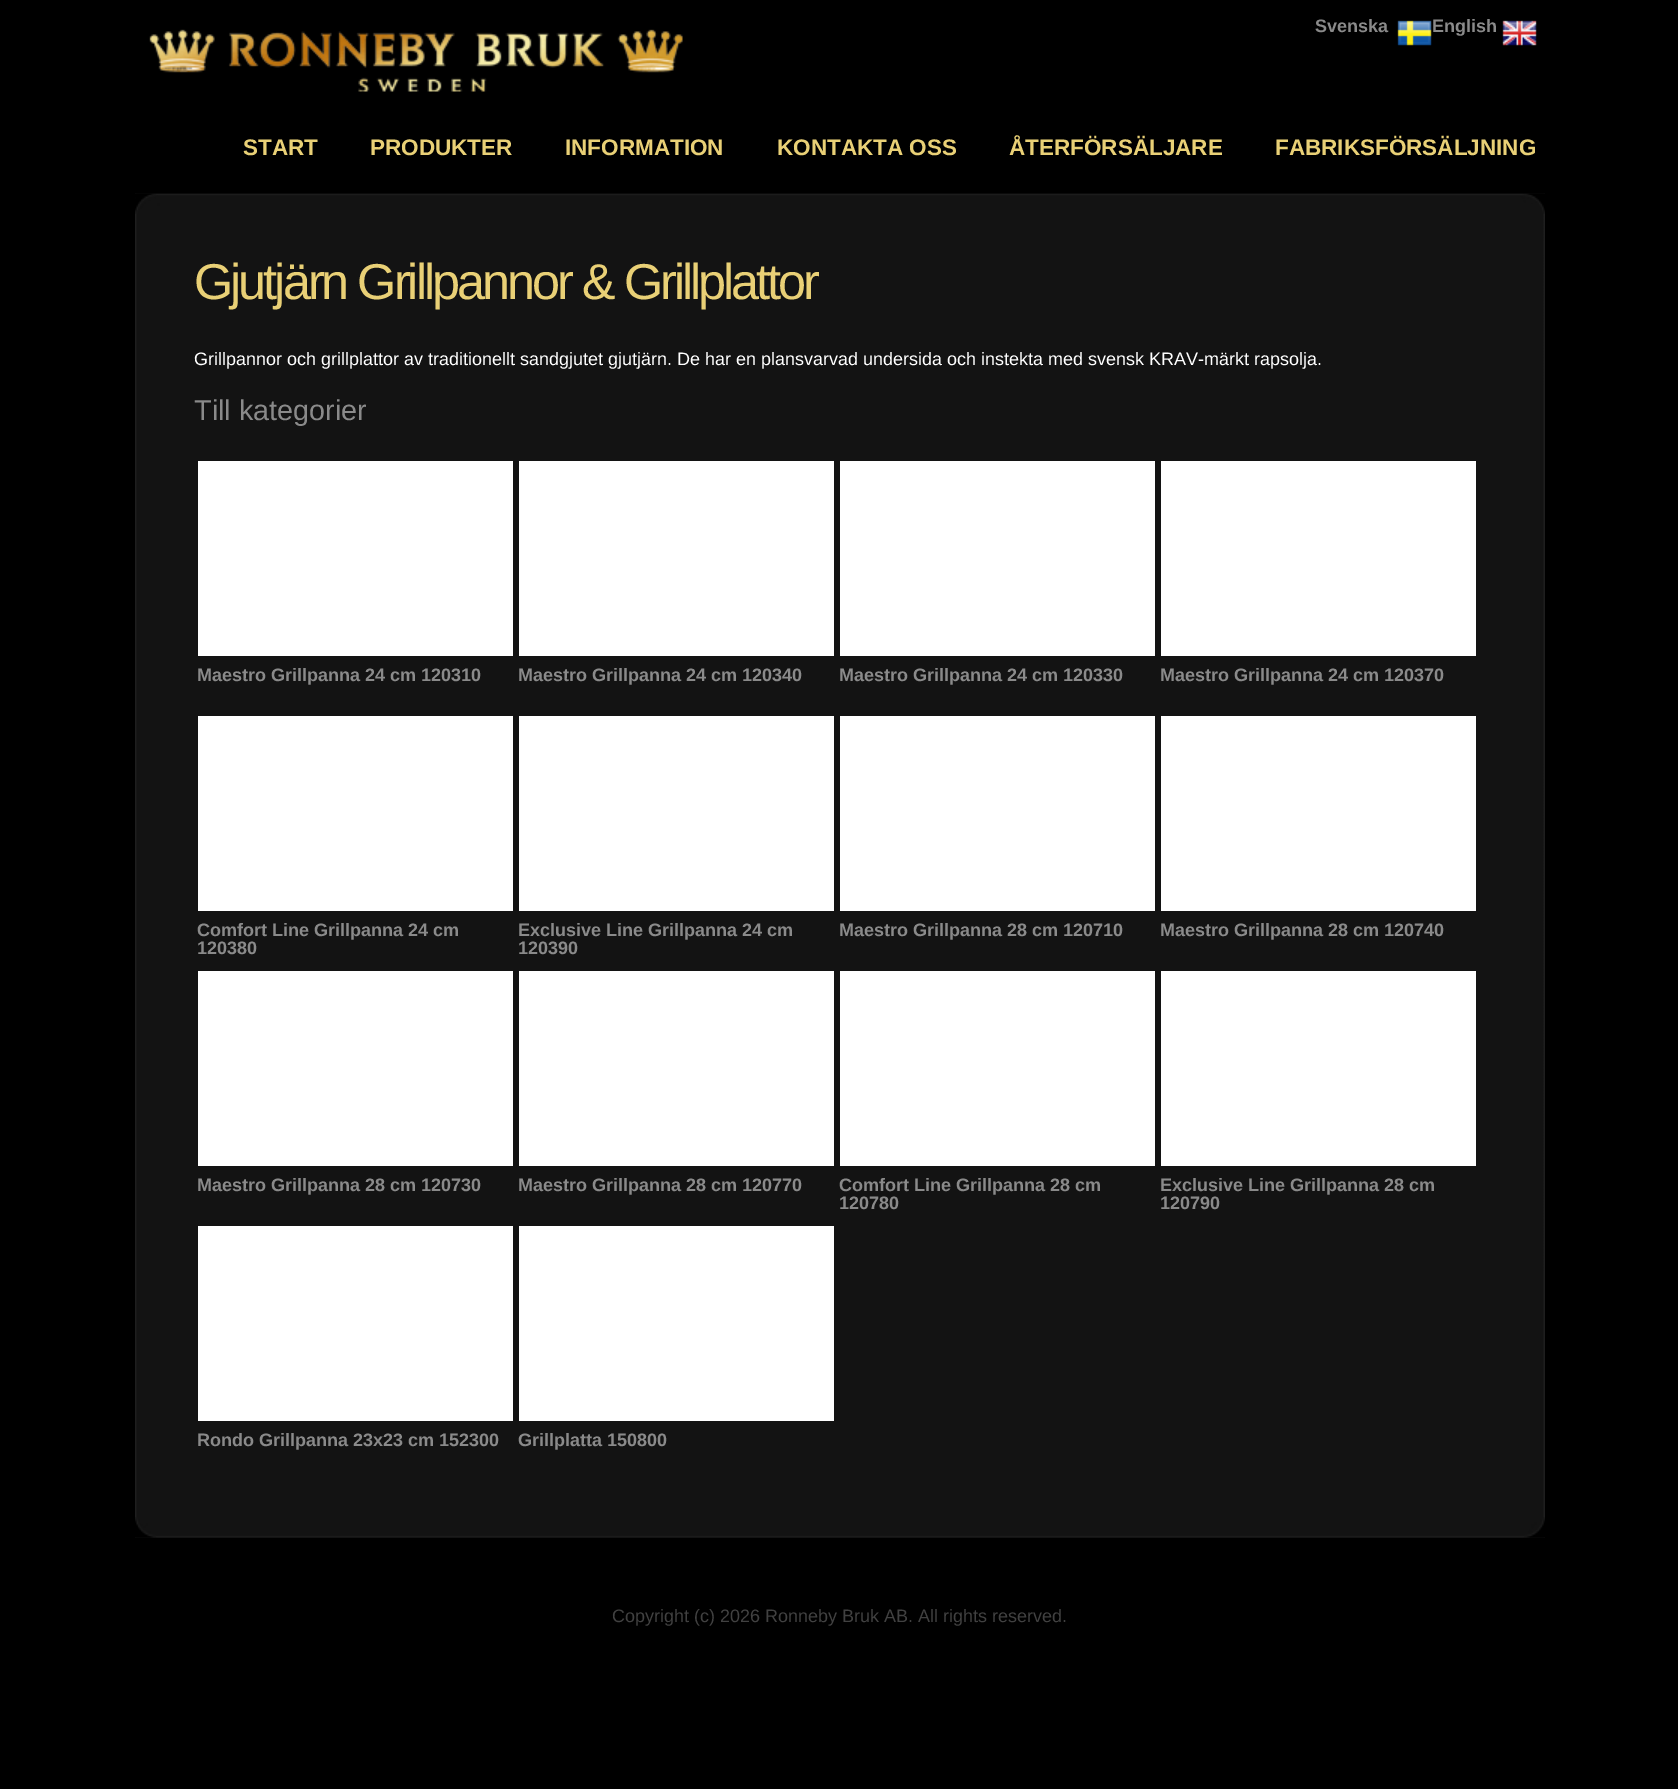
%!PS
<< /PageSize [1678 1789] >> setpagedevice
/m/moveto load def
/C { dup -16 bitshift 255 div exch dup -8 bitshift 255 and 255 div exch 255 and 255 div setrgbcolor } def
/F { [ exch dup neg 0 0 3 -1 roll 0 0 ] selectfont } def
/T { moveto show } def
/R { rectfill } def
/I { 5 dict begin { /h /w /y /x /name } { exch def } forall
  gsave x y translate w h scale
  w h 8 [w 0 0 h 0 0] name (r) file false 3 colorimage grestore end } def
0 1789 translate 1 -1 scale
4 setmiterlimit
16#000000 C
0 0 1678 1789 R
(1.rgb) 1397 20 35 26 I
/LiberationSans-Bold 18 F
16#8A8A8A C
(Svenska) 1315 32 T
(2.rgb) 1502 20 35 26 I
(English) 1432 32 T
(3.rgb) 149 29 534 63 I
/LiberationSans-Bold 22.5 F
16#E9D076 C
(START) 243 155 T
(PRODUKTER) 370 155 T
(INFORMATION) 565 155 T
(KONTAKTA OSS) 777 155 T
(ÅTERFÖRSÄLJARE) 1009 155 T
(FABRIKSFÖRSÄLJNING) 1275 155 T
(4.rgb) 135 193 1410 1345 I
(5.rgb) 135 193 1410 21 I
(6.rgb) 135 1517 1410 21 I
/LiberationSans-Regular 50.4 F
194 299 m -3 0 (Gjutjärn Grillpannor & Grillplattor) ashow
/LiberationSans-Regular 18 F
16#FFFFFF C
(Grillpannor och grillplattor av traditionellt sandgjutet gjutjärn. De har en plansvarvad undersida och instekta med svensk KRAV-märkt rapsolja.) 194 365 T
/LiberationSans-Regular 28.75 F
16#8A8A8A C
(Till kategorier) 194 420 T
16#FFFFFF C
198 461 315 195 R
/LiberationSans-Bold 18 F
16#8A8A8A C
(Maestro Grillpanna 24 cm 120310) 197 681 T
16#FFFFFF C
519 461 315 195 R
16#8A8A8A C
(Maestro Grillpanna 24 cm 120340) 518 681 T
16#FFFFFF C
840 461 315 195 R
16#8A8A8A C
(Maestro Grillpanna 24 cm 120330) 839 681 T
16#FFFFFF C
1161 461 315 195 R
16#8A8A8A C
(Maestro Grillpanna 24 cm 120370) 1160 681 T
16#FFFFFF C
198 716 315 195 R
16#8A8A8A C
(Comfort Line Grillpanna 24 cm) 197 936 T
(120380) 197 954 T
16#FFFFFF C
519 716 315 195 R
16#8A8A8A C
(Exclusive Line Grillpanna 24 cm) 518 936 T
(120390) 518 954 T
16#FFFFFF C
840 716 315 195 R
16#8A8A8A C
(Maestro Grillpanna 28 cm 120710) 839 936 T
16#FFFFFF C
1161 716 315 195 R
16#8A8A8A C
(Maestro Grillpanna 28 cm 120740) 1160 936 T
16#FFFFFF C
198 971 315 195 R
16#8A8A8A C
(Maestro Grillpanna 28 cm 120730) 197 1191 T
16#FFFFFF C
519 971 315 195 R
16#8A8A8A C
(Maestro Grillpanna 28 cm 120770) 518 1191 T
16#FFFFFF C
840 971 315 195 R
16#8A8A8A C
(Comfort Line Grillpanna 28 cm) 839 1191 T
(120780) 839 1209 T
16#FFFFFF C
1161 971 315 195 R
16#8A8A8A C
(Exclusive Line Grillpanna 28 cm) 1160 1191 T
(120790) 1160 1209 T
16#FFFFFF C
198 1226 315 195 R
16#8A8A8A C
(Rondo Grillpanna 23x23 cm 152300) 197 1446 T
16#FFFFFF C
519 1226 315 195 R
16#8A8A8A C
(Grillplatta 150800) 518 1446 T
/LiberationSans-Regular 18 F
16#414141 C
(Copyright \(c\) 2026 Ronneby Bruk AB. All rights reserved.) 612 1622 T
showpage
